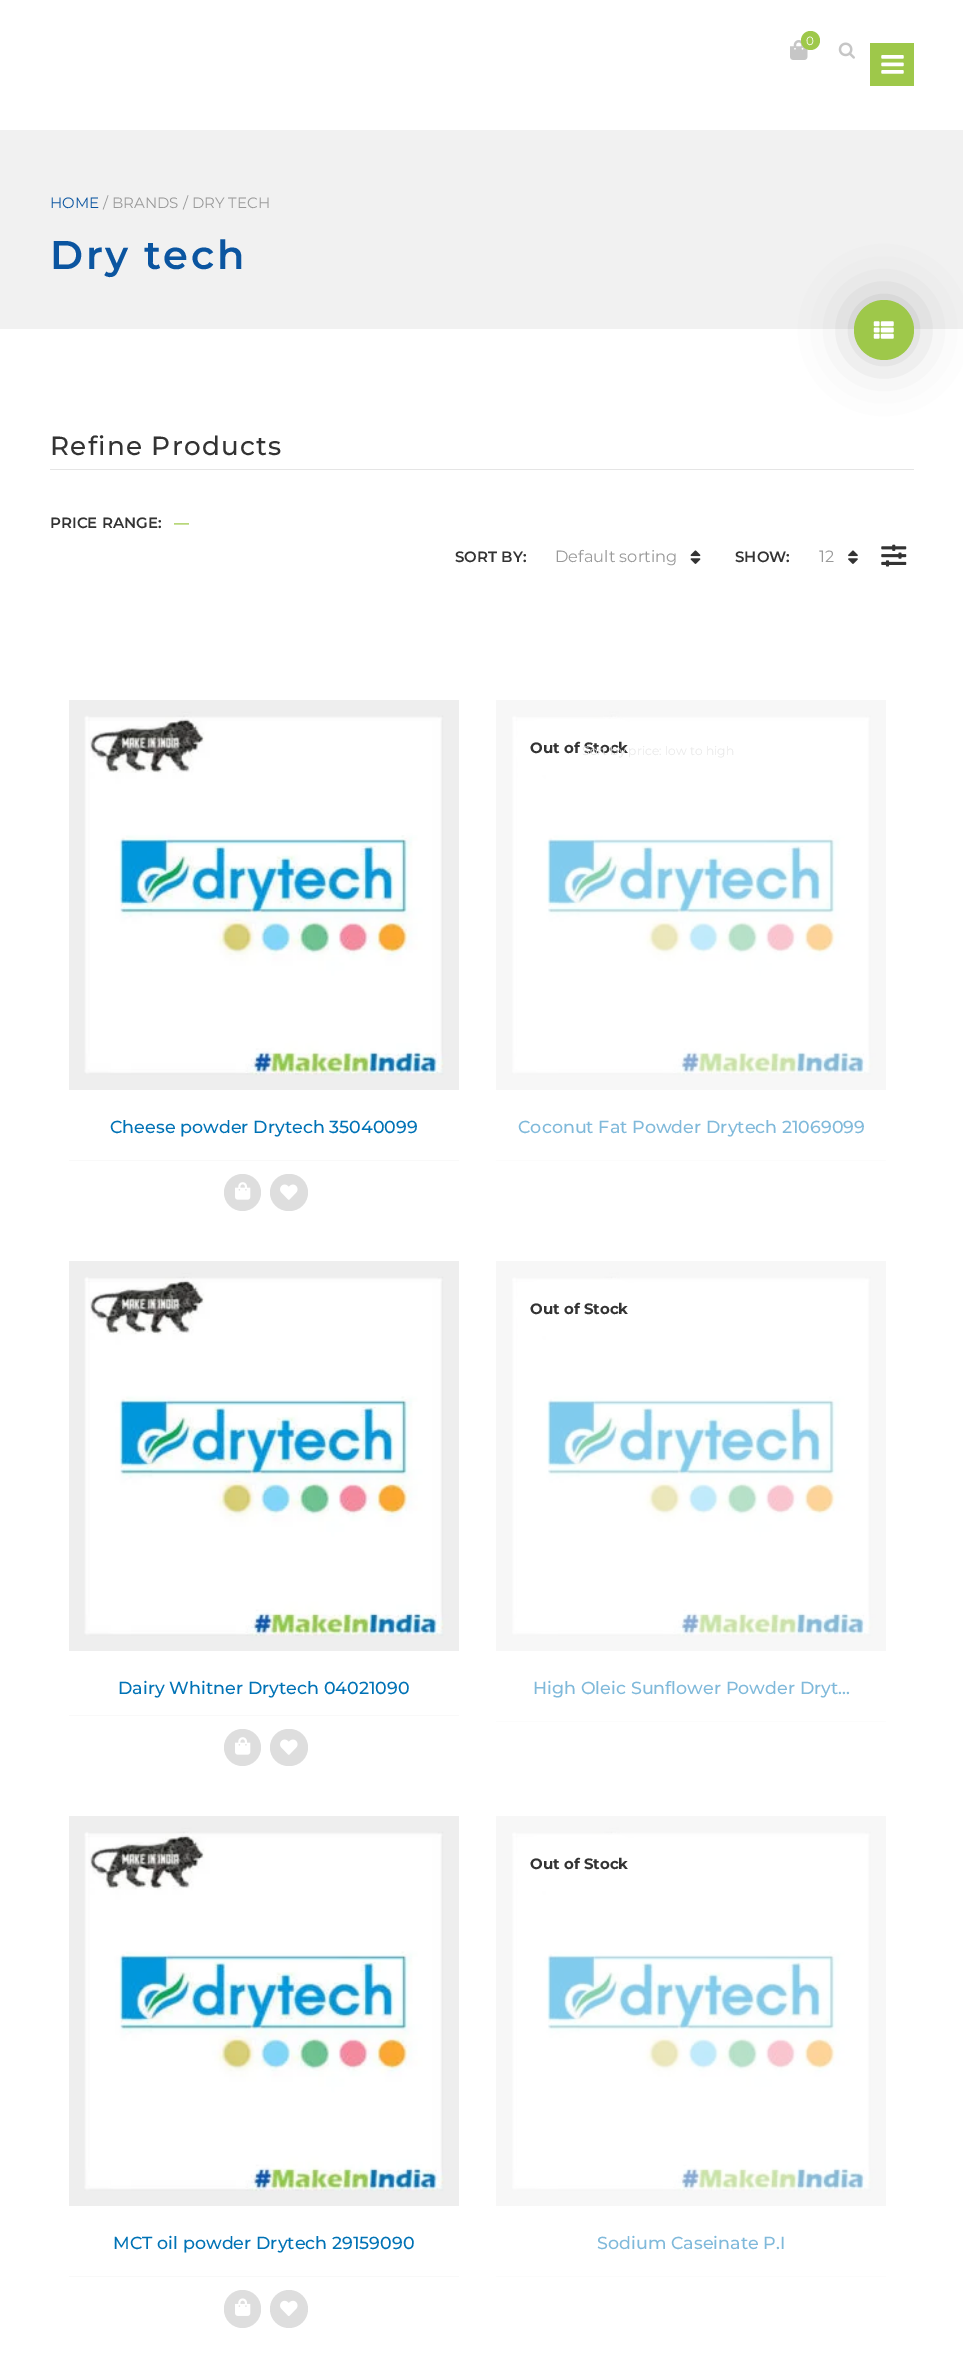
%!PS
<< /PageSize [963 2378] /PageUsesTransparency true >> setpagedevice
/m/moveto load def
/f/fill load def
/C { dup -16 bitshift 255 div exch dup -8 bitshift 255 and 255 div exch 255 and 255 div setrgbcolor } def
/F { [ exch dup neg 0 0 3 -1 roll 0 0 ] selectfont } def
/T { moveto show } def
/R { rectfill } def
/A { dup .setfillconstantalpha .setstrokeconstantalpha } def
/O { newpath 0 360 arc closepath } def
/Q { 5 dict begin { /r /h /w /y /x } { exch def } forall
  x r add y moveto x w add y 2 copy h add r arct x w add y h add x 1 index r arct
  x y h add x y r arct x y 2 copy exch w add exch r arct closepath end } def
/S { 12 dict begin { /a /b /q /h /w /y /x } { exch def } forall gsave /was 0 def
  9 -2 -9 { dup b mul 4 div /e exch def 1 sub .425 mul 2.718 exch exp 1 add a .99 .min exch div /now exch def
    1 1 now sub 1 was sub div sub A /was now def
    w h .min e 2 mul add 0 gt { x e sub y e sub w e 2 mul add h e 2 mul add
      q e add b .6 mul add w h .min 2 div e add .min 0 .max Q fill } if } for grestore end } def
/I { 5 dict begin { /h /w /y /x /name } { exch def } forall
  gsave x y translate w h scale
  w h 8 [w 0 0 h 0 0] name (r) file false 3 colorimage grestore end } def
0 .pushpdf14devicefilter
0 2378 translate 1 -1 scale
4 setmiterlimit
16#FFFFFF C
0 0 963 2378 R
(1.rgb) 790 40 18 20 I
16#9EC84A C
810.5 40.5 9.5 O f
/Montserrat-Regular 12 F
16#FFFFFF C
(0) 806 45 T
(2.rgb) 838 42 17 17 I
16#9EC84A C
870 43 44 43 R
(3.rgb) 881 55 23 19 I
16#F1F1F1 C
0 130 963 199 R
/Montserrat-Regular 15 F
16#0B55A0 C
(HOME) 50 208 T
16#999999 C
(/ BRANDS / DRY TECH) 103 208 T
/Montserrat-SemiBold 40 F
16#0B55A0 C
50 269 m 2.5 0 (Dry tech) ashow
16#000000 C
854 300 60 60 30 25 .2 S
16#9EC84A C
884 330 30 O f
(4.rgb) 873 321 21 18 I
16#E5E5E5 C
50 469 864 1 R
/Montserrat-Medium 26.25 F
16#333333 C
50 455 m 1.25 0 (Refine Products) ashow
/Montserrat-SemiBold 15 F
(PRICE RANGE:) 50 528 T
16#9EC84A C
(—) 174 528 T
16#333333 C
(SORT BY:) 455 562 T
/Montserrat-Regular 16.25 F
16#999999 C
(Default sorting) 555 562 T
(5.rgb) 690 550 11 14 I
(11.rgb) 496 700 390 390 I
16#FFFFFF C
515 719 129 56 28 Q f
/Montserrat-Bold 15 F
16#333333 C
(Out of Stock) 530 753 T
/Montserrat-Regular 12.25 F
16#E9E9E9 C
(Sort by price: low to high) 582 755 T
/Montserrat-SemiBold 15 F
16#333333 C
(SHOW:) 735 562 T
/Montserrat-Regular 16.25 F
16#999999 C
(12) 819 562 T
(6.rgb) 848 550 10 14 I
(7.rgb) 881 544 26 23 I
(8.rgb) 69 700 390 390 I
16#F9F9F9 C
69 1160 390 1 R
/Montserrat-Medium 17.5 F
16#0072B5 C
(Cheese powder Drytech 35040099) 110 1133 T
16#DEDEDE C
242.5 1192.5 18.5 O f
(9.rgb) 235 1182 16 18 I
270 1174 38 37 18.5 Q f
(10.rgb) 280 1184 18 16 I
16#FCFCFC C
496 1160 390 1 R
16#80B9DA C
(Coconut Fat Powder Drytech 21069099) 518 1133 T
(12.rgb) 69 1261 390 390 I
16#F9F9F9 C
69 1715 390 1 R
16#0072B5 C
(Dairy Whitner Drytech 04021090) 118 1694 T
16#DEDEDE C
242.5 1747.5 18.5 O f
(9.rgb) 235 1737 16 18 I
270 1729 38 37 18.5 Q f
(10.rgb) 280 1739 18 16 I
(13.rgb) 496 1261 390 390 I
16#FFFFFF C
515 1280 129 56 28 Q f
/Montserrat-Bold 15 F
16#333333 C
(Out of Stock) 530 1314 T
16#FCFCFC C
496 1721 390 1 R
/Montserrat-Medium 17.5 F
16#80B9DA C
(High Oleic Sunflower Powder Dryt...) 533 1694 T
(14.rgb) 69 1816 390 390 I
16#F9F9F9 C
69 2276 390 1 R
16#0072B5 C
(MCT oil powder Drytech 29159090) 113 2249 T
16#DEDEDE C
224 2290 37 38 18.5 Q f
(15.rgb) 235 2298 16 18 I
289 2309 19 O f
(16.rgb) 280 2300 18 16 I
(17.rgb) 496 1816 390 390 I
16#FFFFFF C
515 1835 129 56 28 Q f
/Montserrat-Bold 15 F
16#333333 C
(Out of Stock) 530 1869 T
16#FCFCFC C
496 2276 390 1 R
/Montserrat-Medium 17.5 F
16#80B9DA C
(Sodium Caseinate P.I) 597 2249 T
.poppdf14devicefilter showpage
